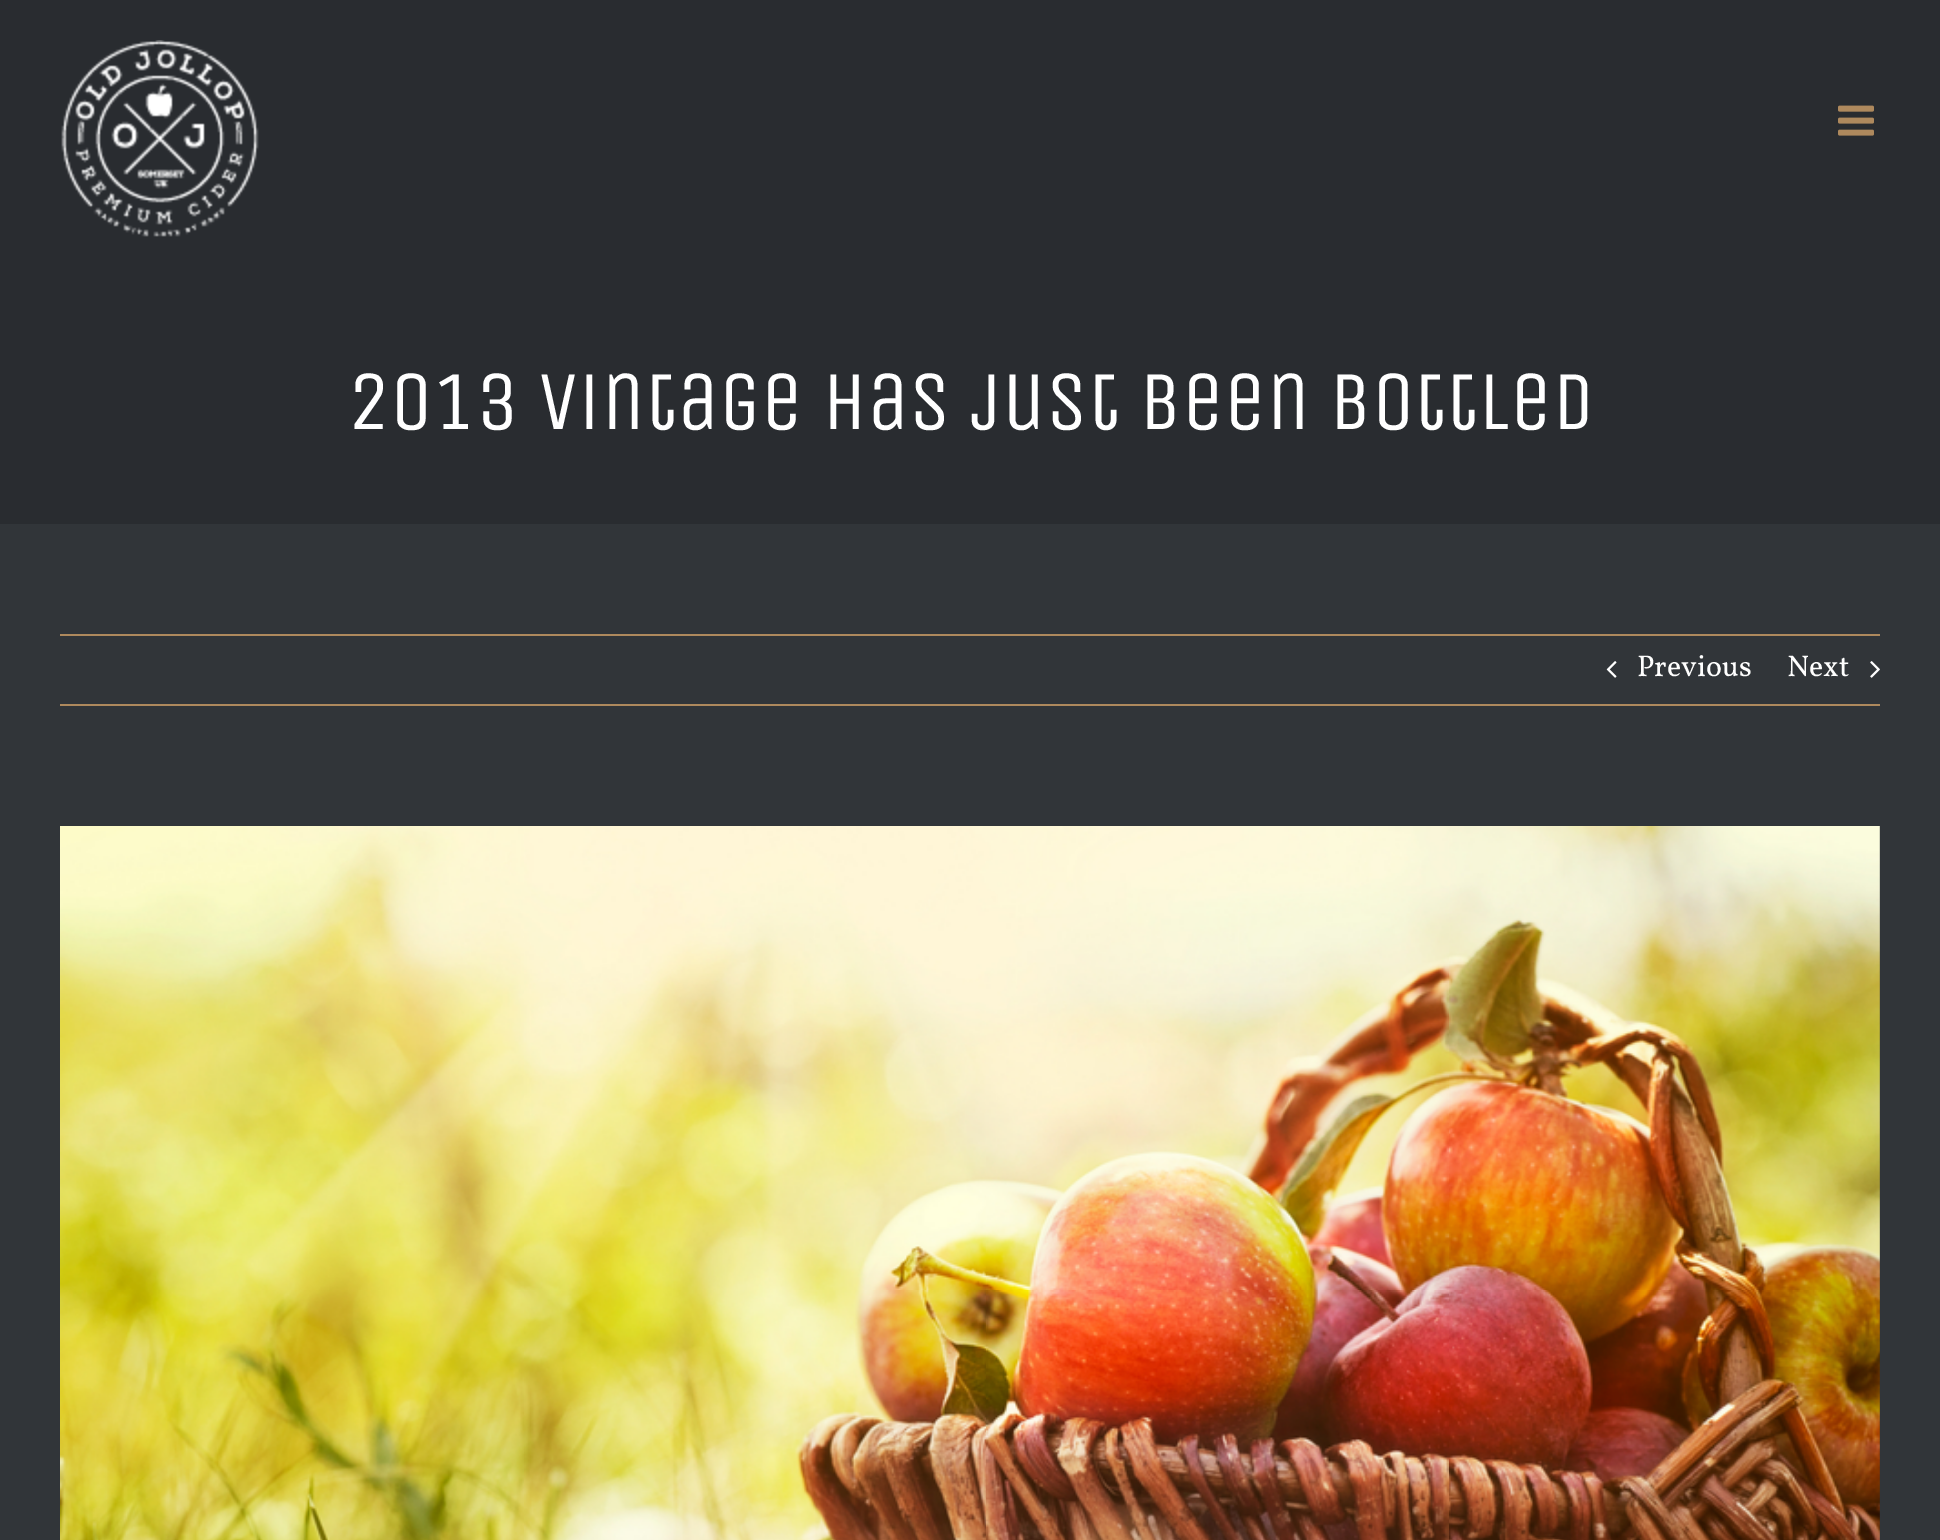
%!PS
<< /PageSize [1940 1540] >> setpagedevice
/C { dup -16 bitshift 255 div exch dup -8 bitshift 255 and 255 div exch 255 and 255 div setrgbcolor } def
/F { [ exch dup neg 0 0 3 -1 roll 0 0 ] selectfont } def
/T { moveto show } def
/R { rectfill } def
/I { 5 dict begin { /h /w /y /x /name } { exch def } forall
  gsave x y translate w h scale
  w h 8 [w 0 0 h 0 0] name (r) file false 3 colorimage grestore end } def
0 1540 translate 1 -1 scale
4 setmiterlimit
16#313539 C
0 0 1940 1540 R
16#292C30 C
0 0 1940 524 R
(1.rgb) 61 40 198 197 I
(2.rgb) 1838 105 36 31 I
/UnicaOne-Regular 84 F
16#FFFFFF C
(2013 Vintage has just been bottled) 347 429 T
16#AE895D C
60 634 1820 2 R
60 704 1820 2 R
(3.rgb) 1606 661 11 17 I
/Vollkorn-Regular 30 F
16#FFFFFF C
(Previous) 1637 676 T
(Next) 1787 676 T
(4.rgb) 1870 661 10 17 I
(5.rgb) 60 826 1820 714 I
showpage
